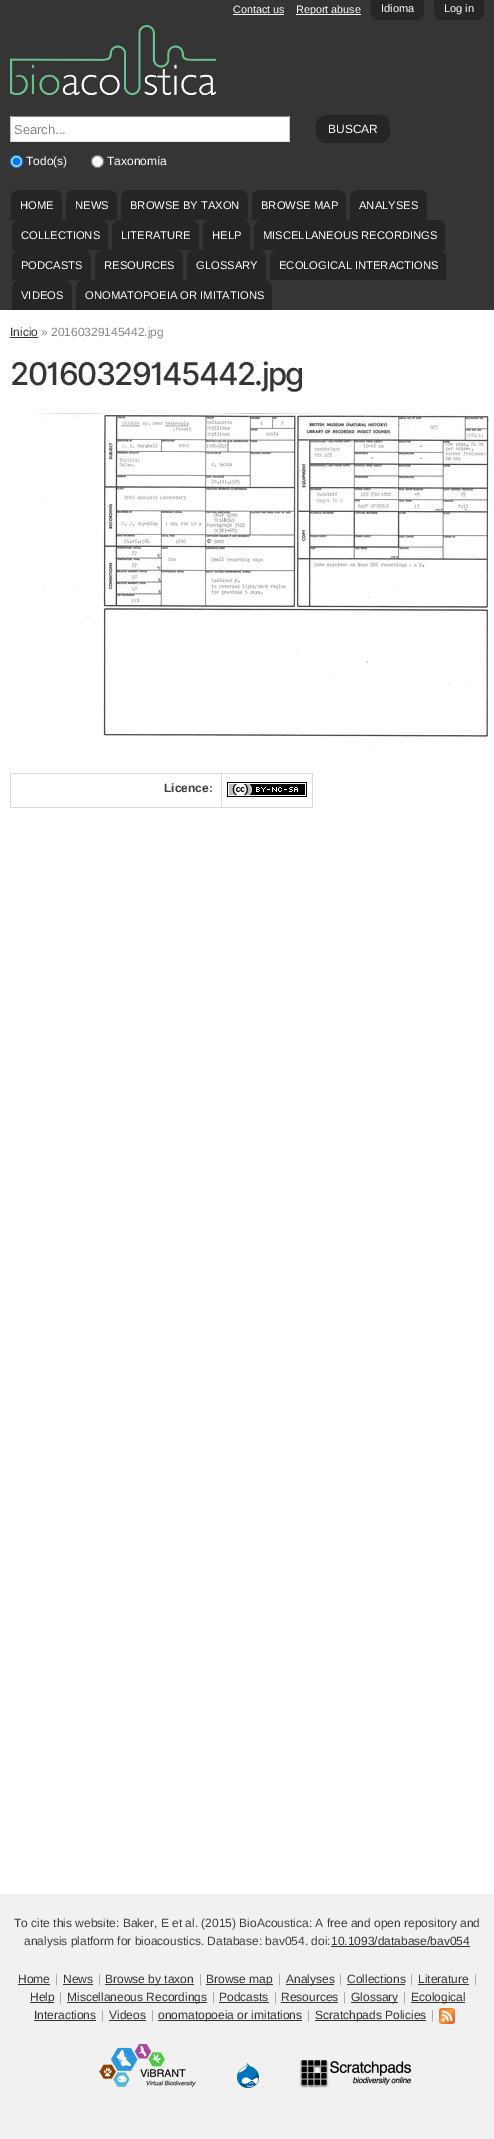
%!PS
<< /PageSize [494 2139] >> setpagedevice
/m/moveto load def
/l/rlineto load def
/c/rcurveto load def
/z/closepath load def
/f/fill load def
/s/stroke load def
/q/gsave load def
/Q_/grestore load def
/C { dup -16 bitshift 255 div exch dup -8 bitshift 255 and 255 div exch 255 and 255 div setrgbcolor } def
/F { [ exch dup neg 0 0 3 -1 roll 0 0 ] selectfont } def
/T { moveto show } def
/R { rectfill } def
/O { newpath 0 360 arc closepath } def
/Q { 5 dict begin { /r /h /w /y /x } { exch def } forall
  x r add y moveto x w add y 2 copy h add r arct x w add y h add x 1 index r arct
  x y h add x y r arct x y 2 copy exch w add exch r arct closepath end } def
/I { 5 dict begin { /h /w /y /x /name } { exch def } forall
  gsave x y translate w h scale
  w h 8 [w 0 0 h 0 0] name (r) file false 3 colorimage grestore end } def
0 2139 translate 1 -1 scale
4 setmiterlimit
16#FFFFFF C
0 0 494 2139 R
16#353535 C
0 0 494 310 R
16#262626 C
371 0 m 53 0 l 0 12 l 0 4.5 -3.5 8 -8 8 c -37 0 l -4.5 0 -8 -3.5 -8 -8 c z f
/LiberationSans-Regular 11 F
16#FFFFFF C
(Idioma) 381 12 T
16#262626 C
434 0 m 50 0 l 0 12 l 0 4.5 -3.5 8 -8 8 c -34 0 l -4.5 0 -8 -3.5 -8 -8 c z f
16#FFFFFF C
(Log in) 444 12 T
/LiberationSans-Regular 10.75 F
(Contact us) 233 13 T
233 14 51 1 R
296 14 65 1 R
(Report abuse) 296 13 T
(1.rgb) 10 25 206 70 I
11 117 278 24 R
16#848484 C
10 116 280 1 R
16#C1C1C1 C
289 116 1 26 R
16#E1E1E1 C
10 141 280 1 R
16#C1C1C1 C
10 116 1 26 R
/LiberationSans-Regular 13 F
16#888888 C
(Search...) 14 134 T
16#252525 C
316 115 74 28 11 Q f
/LiberationSans-Regular 12 F
16#FFFFFF C
(BUSCAR) 328 133 T
16.5 161.5 6 O q f Q_
16#0075FF C
s
16.5 161.5 4 O f
16#FFFFFF C
(Todo\(s\)) 26 165 T
97.5 161.5 6 O q f Q_
16#767676 C
s
16#FFFFFF C
(Taxonomía) 107 165 T
16#252525 C
19 190 m 35 0 l 4.5 0 8 3.5 8 8 c 0 22 l -51 0 l 0 -22 l 0 -4.5 3.5 -8 8 -8 c z f
/LiberationSans-Regular 11.2 F
16#FFFFFF C
(HOME) 20 209 T
16#252525 C
74 190 m 35 0 l 4.5 0 8 3.5 8 8 c 0 22 l -51 0 l 0 -22 l 0 -4.5 3.5 -8 8 -8 c z f
16#FFFFFF C
(NEWS) 75 209 T
16#252525 C
129 190 m 111 0 l 4.5 0 8 3.5 8 8 c 0 22 l -127 0 l 0 -22 l 0 -4.5 3.5 -8 8 -8 c z f
16#FFFFFF C
(BROWSE BY TAXON) 130 209 T
16#252525 C
260 190 m 78 0 l 4.5 0 8 3.5 8 8 c 0 22 l -94 0 l 0 -22 l 0 -4.5 3.5 -8 8 -8 c z f
16#FFFFFF C
(BROWSE MAP) 261 209 T
16#252525 C
358 190 m 61 0 l 4.5 0 8 3.5 8 8 c 0 22 l -77 0 l 0 -22 l 0 -4.5 3.5 -8 8 -8 c z f
16#FFFFFF C
(ANALYSES) 359 209 T
16#252525 C
20 220 m 80 0 l 4.5 0 8 3.5 8 8 c 0 22 l -96 0 l 0 -22 l 0 -4.5 3.5 -8 8 -8 c z f
16#FFFFFF C
(COLLECTIONS) 21 239 T
16#252525 C
120 220 m 71 0 l 4.5 0 8 3.5 8 8 c 0 22 l -87 0 l 0 -22 l 0 -4.5 3.5 -8 8 -8 c z f
16#FFFFFF C
(LITERATURE) 121 239 T
16#252525 C
211 220 m 31 0 l 4.5 0 8 3.5 8 8 c 0 22 l -47 0 l 0 -22 l 0 -4.5 3.5 -8 8 -8 c z f
16#FFFFFF C
(HELP) 212 239 T
16#252525 C
262 220 m 175 0 l 4.5 0 8 3.5 8 8 c 0 22 l -191 0 l 0 -22 l 0 -4.5 3.5 -8 8 -8 c z f
16#FFFFFF C
(MISCELLANEOUS RECORDINGS) 263 239 T
16#252525 C
20 250 m 63 0 l 4.5 0 8 3.5 8 8 c 0 22 l -79 0 l 0 -22 l 0 -4.5 3.5 -8 8 -8 c z f
16#FFFFFF C
(PODCASTS) 21 269 T
16#252525 C
103 250 m 72 0 l 4.5 0 8 3.5 8 8 c 0 22 l -88 0 l 0 -22 l 0 -4.5 3.5 -8 8 -8 c z f
16#FFFFFF C
(RESOURCES) 104 269 T
16#252525 C
195 250 m 63 0 l 4.5 0 8 3.5 8 8 c 0 22 l -79 0 l 0 -22 l 0 -4.5 3.5 -8 8 -8 c z f
16#FFFFFF C
(GLOSSARY) 196 269 T
16#252525 C
278 250 m 160 0 l 4.5 0 8 3.5 8 8 c 0 22 l -176 0 l 0 -22 l 0 -4.5 3.5 -8 8 -8 c z f
16#FFFFFF C
(ECOLOGICAL INTERACTIONS) 279 269 T
16#252525 C
20 280 m 44 0 l 4.5 0 8 3.5 8 8 c 0 22 l -60 0 l 0 -22 l 0 -4.5 3.5 -8 8 -8 c z f
16#FFFFFF C
(VIDEOS) 21 299 T
16#252525 C
84 280 m 180 0 l 4.5 0 8 3.5 8 8 c 0 22 l -196 0 l 0 -22 l 0 -4.5 3.5 -8 8 -8 c z f
16#FFFFFF C
(ONOMATOPOEIA OR IMITATIONS) 85 299 T
/LiberationSans-Regular 12 F
16#353535 C
(Inicio) 10 336 T
10 337 28 1 R
16#888888 C
(» 20160329145442.jpg) 41 336 T
/Inter-Medium 31.25 F
16#353535 C
10 385 m -1.6 0 (20160329145442.jpg) ashow
(2.rgb) 10 413 480 338 I
16#D9DADD C
10 773 303 1 R
312 773 1 35 R
221 807 92 1 R
221 773 1 35 R
10 807 212 1 R
10 773 1 35 R
/LiberationSans-Bold 12 F
16#3E3E3E C
(Licence:) 164 792 T
(3.rgb) 227 782 80 15 I
16#F1F1F1 C
0 1894 494 245 R
/LiberationSans-Regular 12 F
16#3E3E3E C
(To cite this website: Baker, E et al. \(2015\) BioAcoustica: A free and open repository and) 14 1927 T
(analysis platform for bioacoustics. Database: bav054. doi:) 24 1945 T
16#353535 C
(10.1093/database/bav054) 331 1945 T
331 1946 139 1 R
(Home) 18 1983 T
18 1984 32 1 R
16#ACACAC C
(|) 55 1983 T
16#353535 C
(News) 63 1983 T
63 1984 30 1 R
16#ACACAC C
(|) 98 1983 T
16#353535 C
105 1984 89 1 R
(Browse by taxon) 105 1983 T
16#ACACAC C
(|) 199 1983 T
16#353535 C
206 1984 67 1 R
(Browse map) 206 1983 T
16#ACACAC C
(|) 278 1983 T
16#353535 C
286 1984 48 1 R
(Analyses) 286 1983 T
16#ACACAC C
(|) 339 1983 T
16#353535 C
(Collections) 347 1983 T
347 1984 58 1 R
16#ACACAC C
(|) 410 1983 T
16#353535 C
(Literature) 418 1983 T
418 1984 51 1 R
16#ACACAC C
(|) 474 1983 T
16#353535 C
30 2002 24 1 R
(Help) 30 2001 T
16#ACACAC C
(|) 59 2001 T
16#353535 C
67 2002 140 1 R
(Miscellaneous Recordings) 67 2001 T
16#ACACAC C
(|) 212 2001 T
16#353535 C
(Podcasts) 219 2001 T
219 2002 50 1 R
16#ACACAC C
(|) 274 2001 T
16#353535 C
(Resources) 281 2001 T
281 2002 57 1 R
16#ACACAC C
(|) 343 2001 T
16#353535 C
351 2002 47 1 R
(Glossary) 351 2001 T
16#ACACAC C
(|) 403 2001 T
16#353535 C
411 2002 54 1 R
(Ecological) 411 2001 T
(Interactions) 34 2019 T
34 2020 62 1 R
16#ACACAC C
(|) 101 2019 T
16#353535 C
(Videos) 109 2019 T
109 2020 37 1 R
16#ACACAC C
(|) 151 2019 T
16#353535 C
158 2020 144 1 R
(onomatopoeia or imitations) 158 2019 T
16#ACACAC C
(|) 307 2019 T
16#353535 C
315 2020 111 1 R
(Scratchpads Policies) 315 2019 T
16#ACACAC C
(|) 431 2019 T
(4.rgb) 439 2008 16 16 I
(5.rgb) 99 2044 97 43 I
(6.rgb) 237 2063 22 25 I
(7.rgb) 299 2059 112 29 I
showpage
